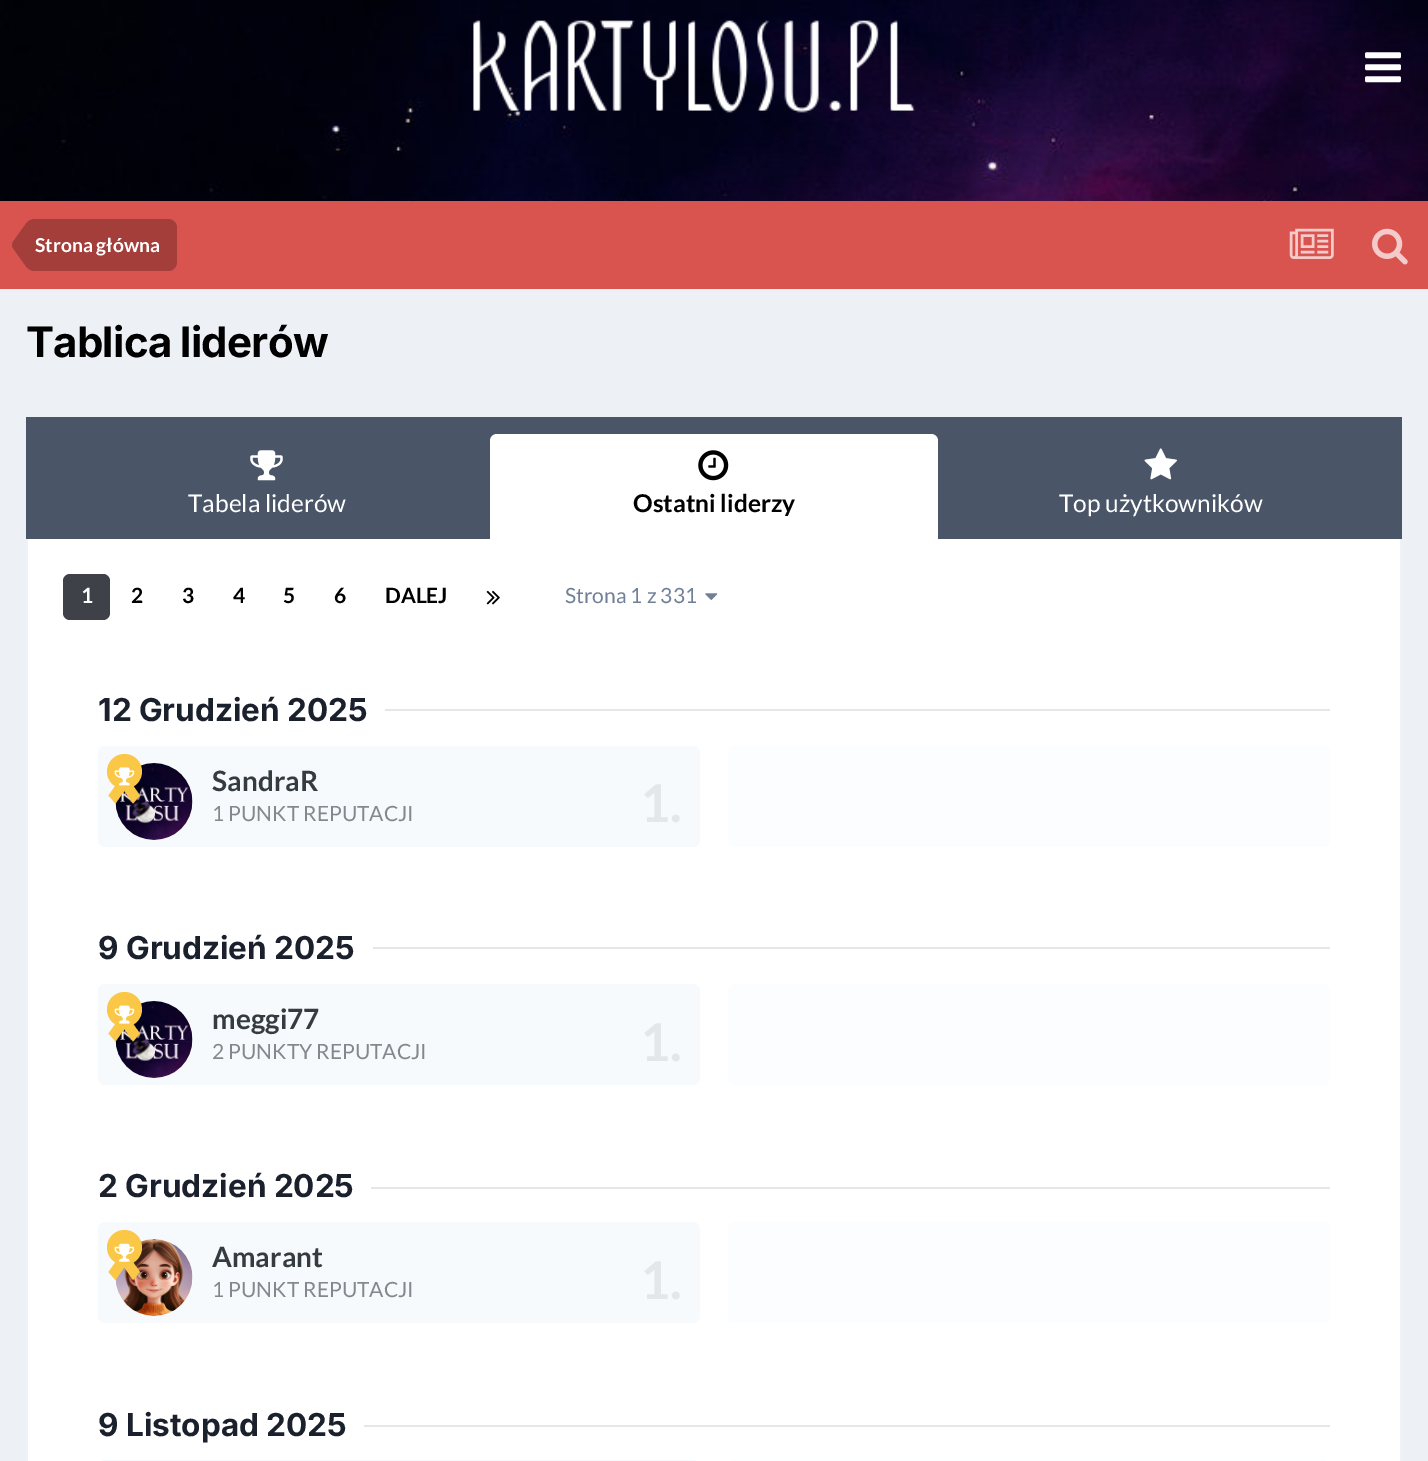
%!PS
<< /PageSize [1428 1461] >> setpagedevice
/m/moveto load def
/l/rlineto load def
/c/rcurveto load def
/z/closepath load def
/f/fill load def
/C { dup -16 bitshift 255 div exch dup -8 bitshift 255 and 255 div exch 255 and 255 div setrgbcolor } def
/F { [ exch dup neg 0 0 3 -1 roll 0 0 ] selectfont } def
/T { moveto show } def
/R { rectfill } def
/O { newpath 0 360 arc closepath } def
/Q { 5 dict begin { /r /h /w /y /x } { exch def } forall
  x r add y moveto x w add y 2 copy h add r arct x w add y h add x 1 index r arct
  x y h add x y r arct x y 2 copy exch w add exch r arct closepath end } def
/I { 5 dict begin { /h /w /y /x /name } { exch def } forall
  gsave x y translate w h scale
  w h 8 [w 0 0 h 0 0] name (r) file false 3 colorimage grestore end } def
0 1461 translate 1 -1 scale
4 setmiterlimit
16#EDF0F4 C
0 0 1428 1461 R
(1.rgb) 0 0 1428 201 I
(2.rgb) 473 20 442 93 I
(3.rgb) 1365 52 36 31 I
16#D9534F C
0 201 1428 88 R
16#A33E3B C
35 219 m 133 0 l 5 0 9 4 9 9 c 0 34 l 0 5 -4 9 -9 9 c -133 0 l z f
35 245 m 0 26 l -4 0 -7.5 -2 -10 -6 c -12.5 -17.5 l -.5 -2.5 l z 35 245 m -23 0 l .5 -2.5 l 12.5 -17.5 l 2.5 -4 6 -6 10 -6 c z f
/Lato-Bold 19.25 F
16#FFFFFF C
(Strona główna) 35 252 T
(4.rgb) 1289 228 45 31 I
(5.rgb) 1372 228 36 37 I
/Inter-Bold 42 F
16#000000 C
26 357 m -.8 0 (Tablica liderów) ashow
16#4A5568 C
26 417 1376 122 R
(6.rgb) 250 450 33 31 I
/Lato-Regular 24.5 F
16#FFFFFF C
(Tabela liderów) 188 512 T
497 434 m 434 0 l 4 0 7 3 7 7 c 0 98 l -448 0 l 0 -98 l 0 -4 3 -7 7 -7 c z f
(7.rgb) 698 450 31 31 I
/Lato-Bold 24.5 F
16#000000 C
(Ostatni liderzy) 633 512 T
(8.rgb) 1144 448 33 32 I
/Lato-Regular 24.5 F
16#FFFFFF C
(Top użytkowników) 1059 512 T
28 539 1372 922 R
16#EDF2F7 C
1400 539 2 922 R
26 539 2 922 R
16#3E4148 C
63 574 47 46 7 Q f
/Lato-Bold 21 F
16#FFFFFF C
(1) 81 603 T
16#000000 C
(2) 131 603 T
(3) 182 603 T
(4) 233 603 T
(5) 283 603 T
(6) 334 603 T
(DALEJ) 385 603 T
(9.rgb) 486 590 14 15 I
/Lato-Regular 21 F
16#718096 C
(Strona 1 z 331) 565 603 T
(10.rgb) 705 593 13 7 I
/Inter-Bold 31.5 F
16#1A202C C
(12 Grudzień 2025) 98 721 T
16#E6E6E6 C
385 709 945 2 R
16#F7FAFC C
98 746 602 101 7 Q f
16#FFFFFF C
154.5 801.5 38.5 O f
(12.rgb) 115 763 78 77 I
16#FAC746 C
124.5 771.5 17.5 O f
124.5 773 m 6.5 8 l -15.5 22.5 l -7 -8 l z f
117.5 781 m 6.5 -8 l 16 22.5 l -7 8 l z f
(11.rgb) 114 767 21 19 I
/Lato-Bold 28 F
16#353C41 C
(SandraR) 212 791 T
/Lato-Regular 21 F
16#83888C C
(1 PUNKT REPUTACJI) 212 821 T
/Lato-Bold 52 F
16#E4E7E9 C
(1.) 640 822 T
16#FCFDFE C
728 746 602 101 7 Q f
/Inter-Bold 31.5 F
16#1A202C C
(9 Grudzień 2025) 98 959 T
16#E6E6E6 C
373 947 957 2 R
16#F7FAFC C
98 984 602 101 7 Q f
16#FFFFFF C
154.5 1039.5 38.5 O f
(14.rgb) 115 1001 78 77 I
16#FAC746 C
124.5 1009.5 17.5 O f
124.5 1011.5 m 6.5 8 l -15.5 22 l -7 -8 l z f
117.5 1019.5 m 6.5 -8 l 16 22 l -7 8 l z f
(13.rgb) 114 1005 21 19 I
/Lato-Bold 28 F
16#353C41 C
(meggi77) 212 1029 T
/Lato-Regular 21 F
16#83888C C
(2 PUNKTY REPUTACJI) 212 1059 T
/Lato-Bold 52 F
16#E4E7E9 C
(1.) 640 1061 T
16#FCFDFE C
728 984 602 101 7 Q f
/Inter-Bold 31.5 F
16#1A202C C
(2 Grudzień 2025) 98 1197 T
16#E6E6E6 C
371 1187 959 2 R
16#F7FAFC C
98 1222 602 101 7 Q f
16#FFFFFF C
154.5 1277.5 38.5 O f
(16.rgb) 115 1239 78 77 I
16#FAC746 C
124.5 1247.5 17.5 O f
124.5 1249.5 m 6.5 8 l -15.5 22.5 l -7 -8 l z f
117.5 1257.5 m 6.5 -8 l 16 22.5 l -7 8 l z f
(15.rgb) 114 1243 21 19 I
/Lato-Bold 28 F
16#353C41 C
(Amarant) 212 1267 T
/Lato-Regular 21 F
16#83888C C
(1 PUNKT REPUTACJI) 212 1297 T
/Lato-Bold 52 F
16#E4E7E9 C
(1.) 640 1299 T
16#FCFDFE C
728 1222 602 101 7 Q f
/Inter-Bold 31.5 F
16#1A202C C
(9 Listopad 2025) 98 1436 T
16#E6E6E6 C
364 1425 966 2 R
16#F7FAFC C
98 1460 602 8 7 Q f
16#FCFDFE C
728 1460 602 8 7 Q f
showpage
